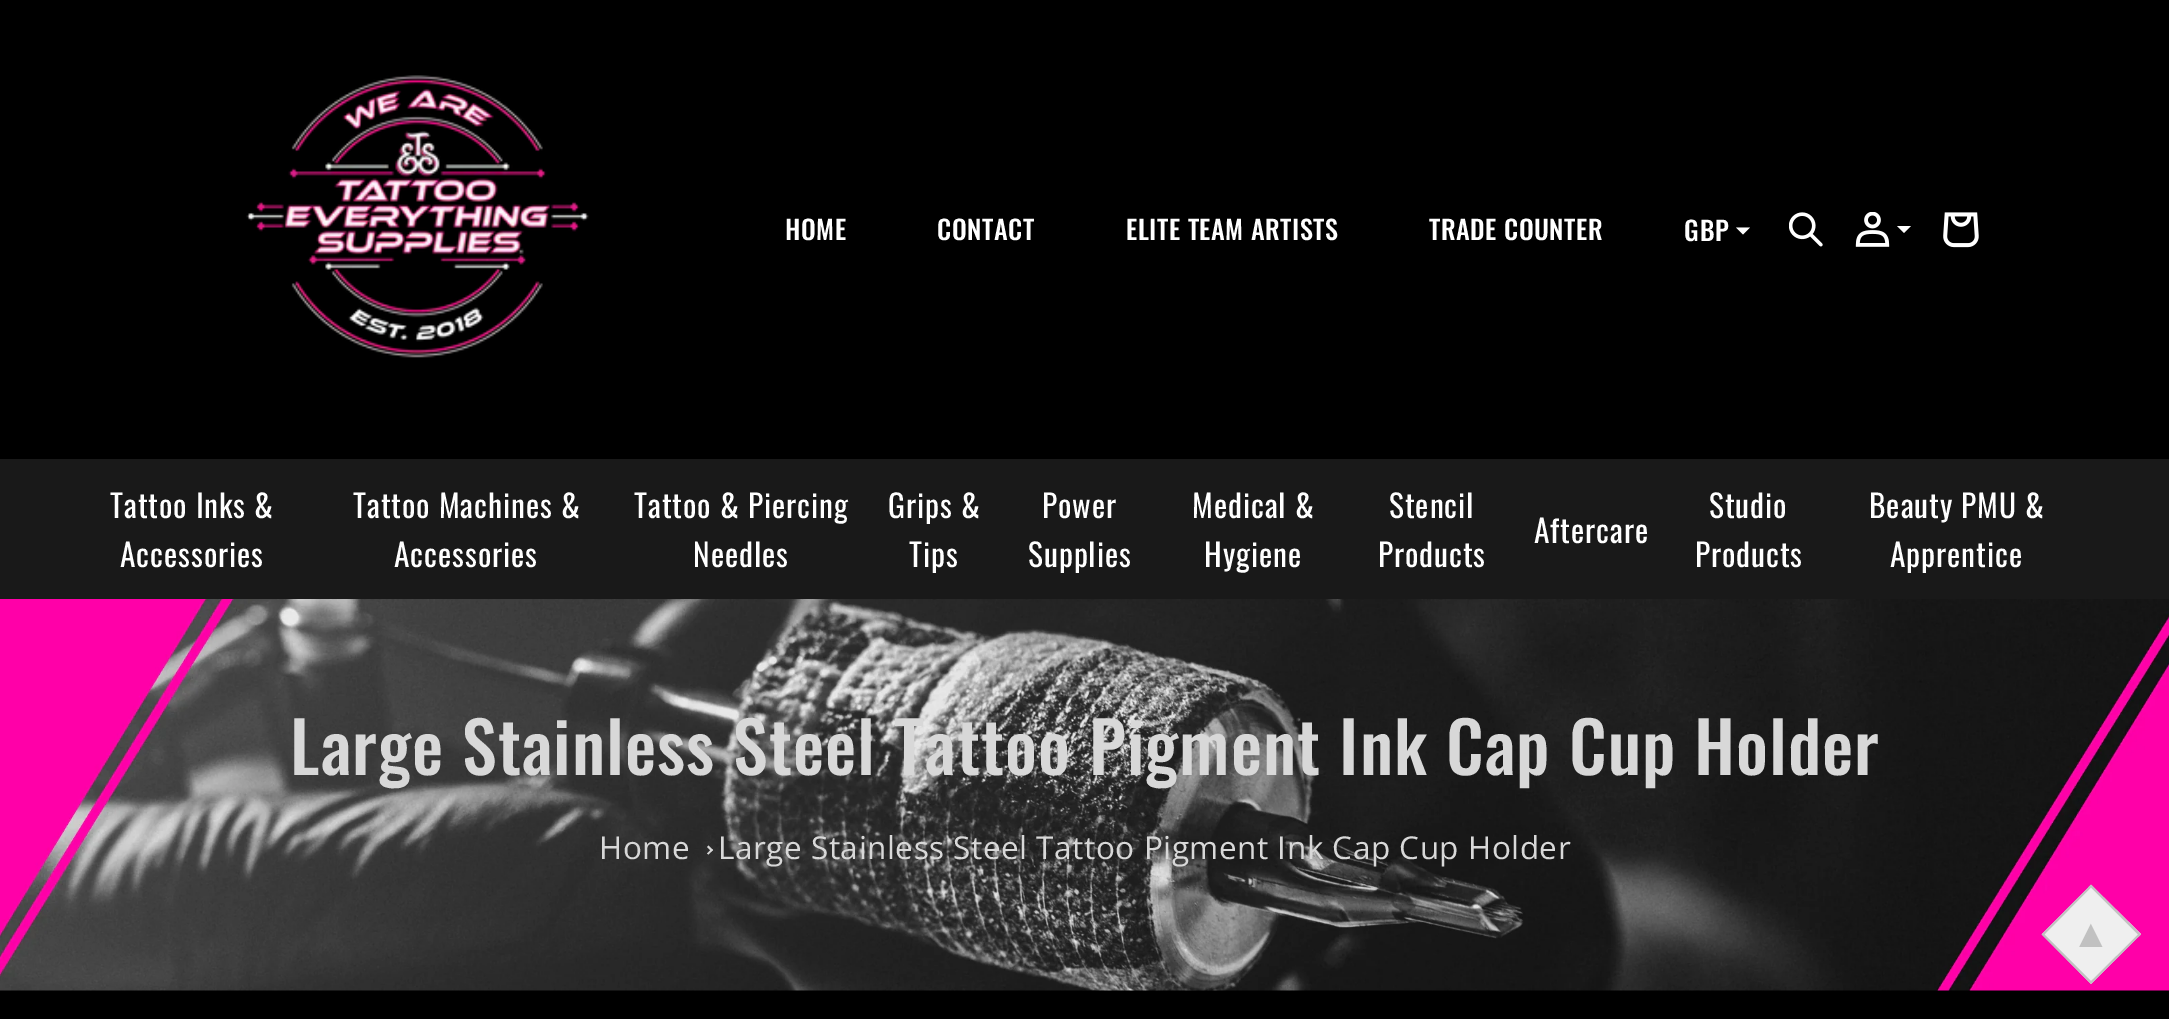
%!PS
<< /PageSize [2169 1019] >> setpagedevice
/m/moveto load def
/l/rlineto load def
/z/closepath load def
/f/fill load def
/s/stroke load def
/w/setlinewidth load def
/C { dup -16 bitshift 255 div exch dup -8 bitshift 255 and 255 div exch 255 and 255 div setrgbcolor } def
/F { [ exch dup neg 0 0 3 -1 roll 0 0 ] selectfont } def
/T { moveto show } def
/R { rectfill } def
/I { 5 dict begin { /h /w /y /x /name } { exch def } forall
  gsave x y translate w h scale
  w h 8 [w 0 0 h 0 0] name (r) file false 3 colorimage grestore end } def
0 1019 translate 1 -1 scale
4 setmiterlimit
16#000000 C
0 0 2169 1019 R
(1.rgb) 246 75 343 283 I
/Oswald-Medium 26.25 F
16#FFFFFF C
785 240 m .53 0 (HOME) ashow
937 240 m .53 0 (CONTACT) ashow
1126 240 m .53 0 (ELITE TEAM ARTISTS) ashow
1429 240 m .53 0 (TRADE COUNTER) ashow
1684 241 m 1 0 (GBP) ashow
1736 227.5 m 14 0 l -7 7 l z f
(2.rgb) 1789 212 34 35 I
(3.rgb) 1855 212 35 35 I
1897 226 m 14 0 l -7 7 l z f
(4.rgb) 1943 212 36 36 I
16#191919 C
0 459 2169 140 R
/Oswald-Regular 31.5 F
16#FFFFFF C
110 518 m .9 0 (Tattoo Inks &) ashow
120 567 m .9 0 (Accessories) ashow
353 518 m .9 0 (Tattoo Machines &) ashow
394 567 m .9 0 (Accessories) ashow
634 518 m .9 0 (Tattoo & Piercing) ashow
693 567 m .9 0 (Needles) ashow
888 518 m .9 0 (Grips &) ashow
909 567 m .9 0 (Tips) ashow
1042 518 m .9 0 (Power) ashow
1028 567 m .9 0 (Supplies) ashow
1192 518 m .9 0 (Medical &) ashow
1204 567 m .9 0 (Hygiene) ashow
1389 518 m .9 0 (Stencil) ashow
1378 567 m .9 0 (Products) ashow
1534 543 m .9 0 (Aftercare) ashow
1709 518 m .9 0 (Studio) ashow
1695 567 m .9 0 (Products) ashow
1869 518 m .9 0 (Beauty PMU &) ashow
1890 567 m .9 0 (Apprentice) ashow
(5.rgb) 0 599 2169 392 I
/Oswald-Medium 70 F
16#D8D8D8 C
290 775 m 1.05 0 (Large Stainless Steel Tattoo Pigment Ink Cap Cup Holder) ashow
/OpenSans-Regular 31.5 F
599 859 m .53 0 (Home) ashow
708.5 845.5 m 4.5 4.5 l -1.5 1.5 l -4.5 -4.5 l z f
711.5 849 m 1.5 1 l -4.5 4.5 l -1.5 -1 l z f
718 859 m .53 0 (Large Stainless Steel Tattoo Pigment Ink Cap Cup Holder) ashow
16#EFEFEF C
2091 885 m 50 49 l -50 50 l -49 -50 l z f
16#C1C1C1 C
1.8 w
2091 886 m 48.5 48.5 l -48.5 48 l -48 -48 l z s
/LiberationSans-Regular 40 F
(▲) 2071 947 T
showpage
